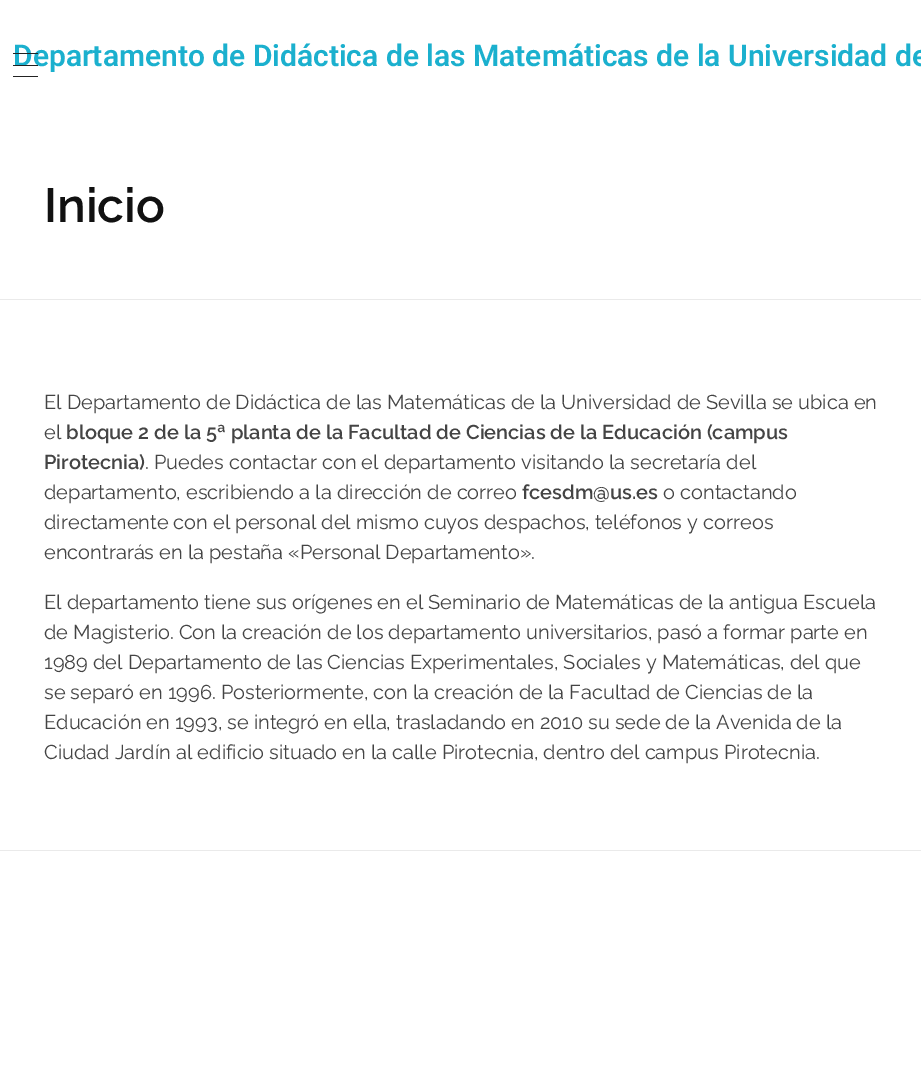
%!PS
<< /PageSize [921 1089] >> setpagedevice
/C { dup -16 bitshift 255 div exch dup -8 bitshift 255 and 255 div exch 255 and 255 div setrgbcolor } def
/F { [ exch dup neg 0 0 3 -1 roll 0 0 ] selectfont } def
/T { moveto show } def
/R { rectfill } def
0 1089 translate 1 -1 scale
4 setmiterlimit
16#FFFFFF C
0 0 921 1089 R
/Roboto-SemiBold 30 F
16#1BB0CE C
(Departamento de Didáctica de las Matemáticas de la Universidad de) 13 66 T
16#222222 C
13 53 25 1 R
13 65 25 1 R
13 76 25 1 R
16#EAEAEA C
0 299 921 1 R
/Raleway-SemiBold 48 F
16#111111 C
(Inicio) 44 222 T
/Raleway-Regular 20 F
16#444444 C
(El Departamento de Didáctica de las Matemáticas de la Universidad de Sevilla se ubica en) 44 409 T
(el) 44 439 T
/Raleway-SemiBold 20 F
(bloque 2 de la 5ª planta de la Facultad de Ciencias de la Educación \(campus) 66 439 T
(Pirotecnia\)) 44 469 T
/Raleway-Regular 20 F
(. Puedes contactar con el departamento visitando la secretaría del) 145 469 T
(departamento, escribiendo a la dirección de correo) 44 499 T
/Raleway-SemiBold 20 F
(fcesdm@us.es) 522 499 T
/Raleway-Regular 20 F
(o contactando) 663 499 T
(directamente con el personal del mismo cuyos despachos, teléfonos y correos) 44 529 T
(encontrarás en la pestaña «Personal Departamento».) 44 559 T
(El departamento tiene sus orígenes en el Seminario de Matemáticas de la antigua Escuela) 44 609 T
(de Magisterio. Con la creación de los departamento universitarios, pasó a formar parte en) 44 639 T
(1989 del Departamento de las Ciencias Experimentales, Sociales y Matemáticas, del que) 44 669 T
(se separó en 1996. Posteriormente, con la creación de la Facultad de Ciencias de la) 44 699 T
(Educación en 1993, se integró en ella, trasladando en 2010 su sede de la Avenida de la) 44 729 T
(Ciudad Jardín al edificio situado en la calle Pirotecnia, dentro del campus Pirotecnia.) 44 759 T
16#EAEAEA C
0 850 921 1 R
showpage
